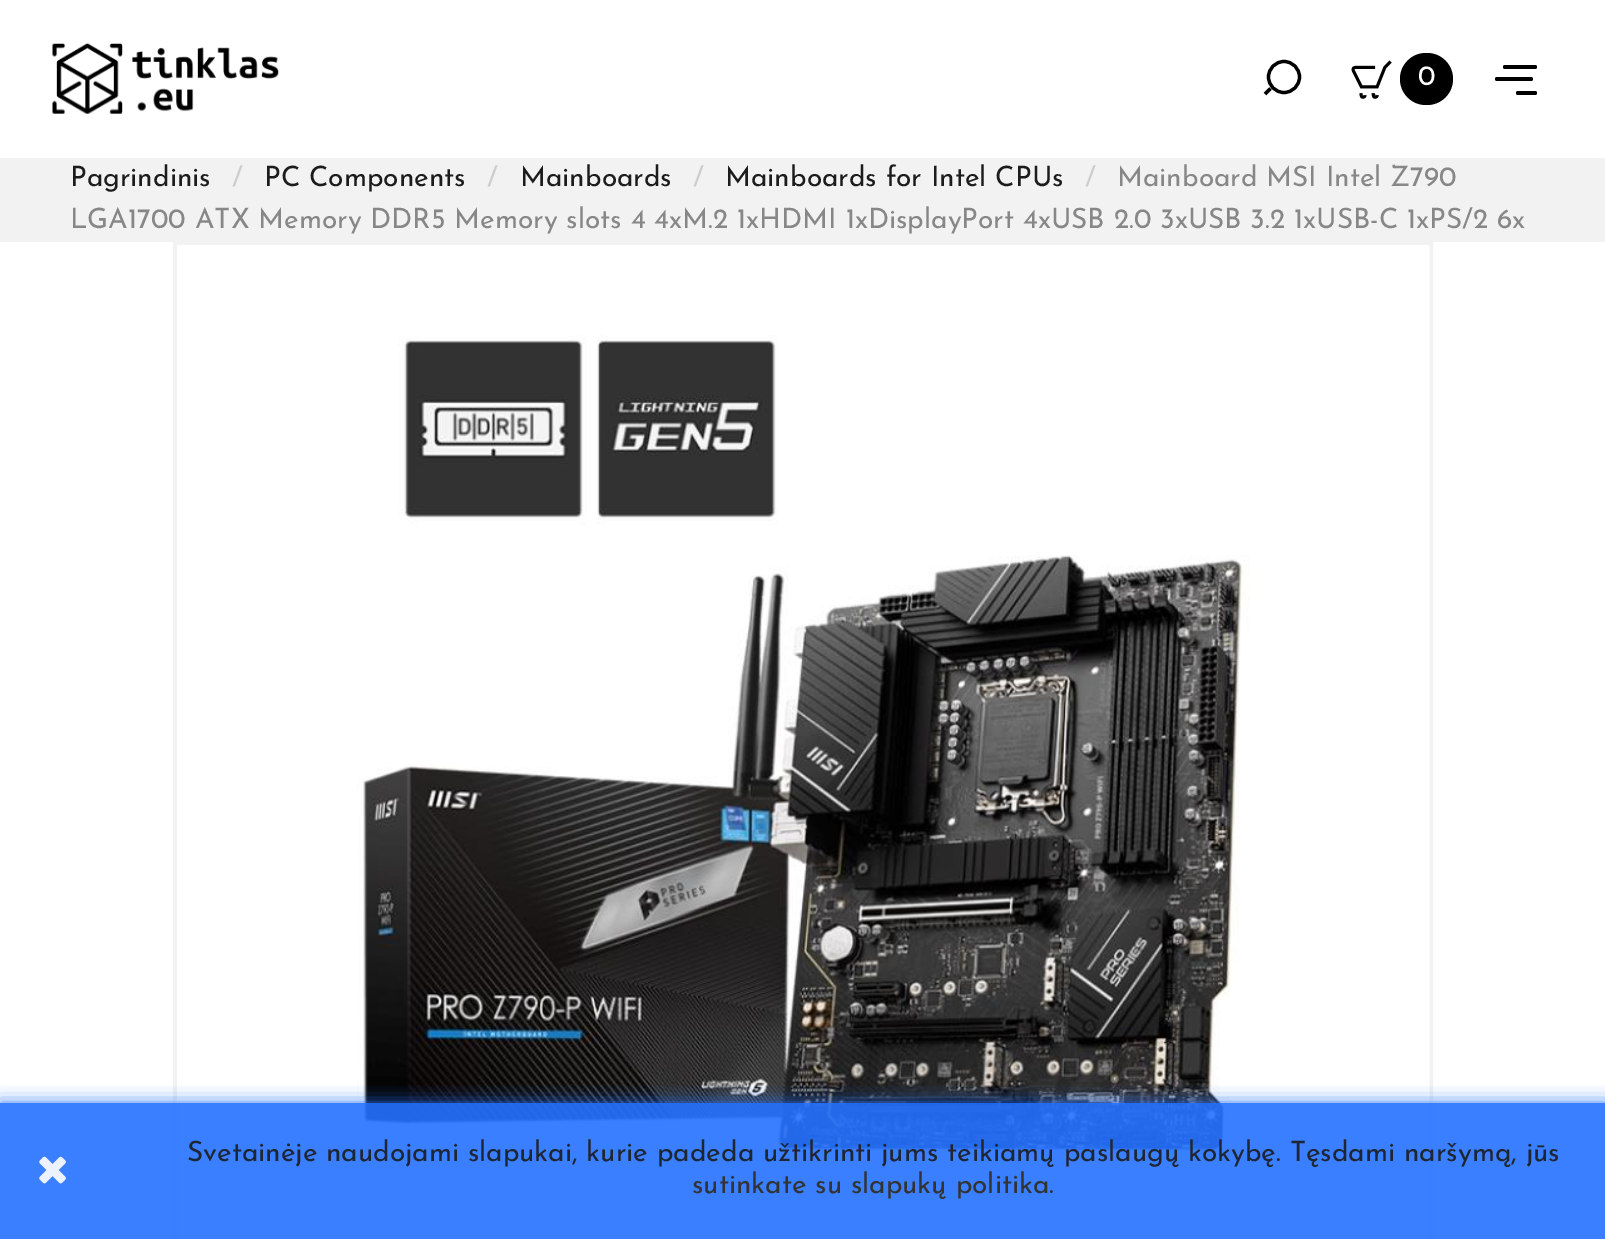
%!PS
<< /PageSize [1605 1239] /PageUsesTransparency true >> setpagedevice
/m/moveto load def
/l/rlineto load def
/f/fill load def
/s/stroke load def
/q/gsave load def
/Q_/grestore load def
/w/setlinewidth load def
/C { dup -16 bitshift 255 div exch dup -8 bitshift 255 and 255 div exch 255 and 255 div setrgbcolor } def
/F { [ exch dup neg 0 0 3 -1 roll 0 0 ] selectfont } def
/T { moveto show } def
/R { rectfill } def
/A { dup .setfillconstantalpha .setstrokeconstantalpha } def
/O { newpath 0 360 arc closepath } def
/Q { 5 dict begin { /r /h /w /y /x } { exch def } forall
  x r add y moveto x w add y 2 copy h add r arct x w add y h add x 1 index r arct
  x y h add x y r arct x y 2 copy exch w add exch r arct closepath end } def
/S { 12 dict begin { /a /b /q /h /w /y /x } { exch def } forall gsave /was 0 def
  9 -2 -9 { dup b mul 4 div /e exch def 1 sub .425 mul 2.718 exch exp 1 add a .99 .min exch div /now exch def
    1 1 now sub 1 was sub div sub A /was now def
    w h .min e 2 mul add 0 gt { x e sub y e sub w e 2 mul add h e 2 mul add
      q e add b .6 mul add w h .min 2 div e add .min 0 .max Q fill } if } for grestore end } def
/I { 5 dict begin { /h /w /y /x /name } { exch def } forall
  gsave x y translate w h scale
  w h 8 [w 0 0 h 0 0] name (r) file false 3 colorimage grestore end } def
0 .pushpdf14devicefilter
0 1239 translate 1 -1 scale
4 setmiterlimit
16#FFFFFF C
0 0 1605 1239 R
(1.rgb) 52 43 227 71 I
16#000000 C
3.2 w
1284 77 15.5 O s
1265 94 m 5.5 -5.5 l s
(2.rgb) 1351 60 41 39 I
1400 53 53 52 26 Q f
/JosefinSans-Regular 28 F
16#FFFFFF C
(0) 1418 85 T
16#000000 C
1503 65 34 4 2 Q f
1495 77 38 4 2 Q f
1516 91 21 4 2 Q f
16#F2F2F2 C
0 158 1605 84 R
16#1C1C1C C
(Pagrindinis) 70 186 T
16#CCCCCC C
(/) 232 186 T
16#1C1C1C C
(PC Components) 264 186 T
16#CCCCCC C
(/) 487 186 T
16#1C1C1C C
(Mainboards) 520 186 T
16#CCCCCC C
(/) 693 186 T
16#1C1C1C C
(Mainboards for Intel CPUs) 725 186 T
16#CCCCCC C
(/) 1085 186 T
16#878787 C
(Mainboard MSI Intel Z790) 1117 186 T
(LGA1700 ATX Memory DDR5 Memory slots 4 4xM.2 1xHDMI 1xDisplayPort 4xUSB 2.0 3xUSB 3.2 1xUSB-C 1xPS/2 6x) 70 228 T
16#F2F2F2 C
4 w
175 244 1256 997 rectstroke
(3.rgb) 177 245 1253 994 I
q
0 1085 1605 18 rectclip
16#2471FF C
0 1103 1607 136 0 9 .9 S
Q_
0.9 A
16#2471FF C
0 1103 1605 136 R
1 A
(4.rgb) 39 1156 27 28 I
16#1F2633 C
(Svetainėje naudojami slapukai, kurie padeda užtikrinti jums teikiamų paslaugų kokybę. Tęsdami naršymą, jūs) 187 1161 T
16#333333 C
(sutinkate su slapukų politika.) 692 1193 T
.poppdf14devicefilter showpage
